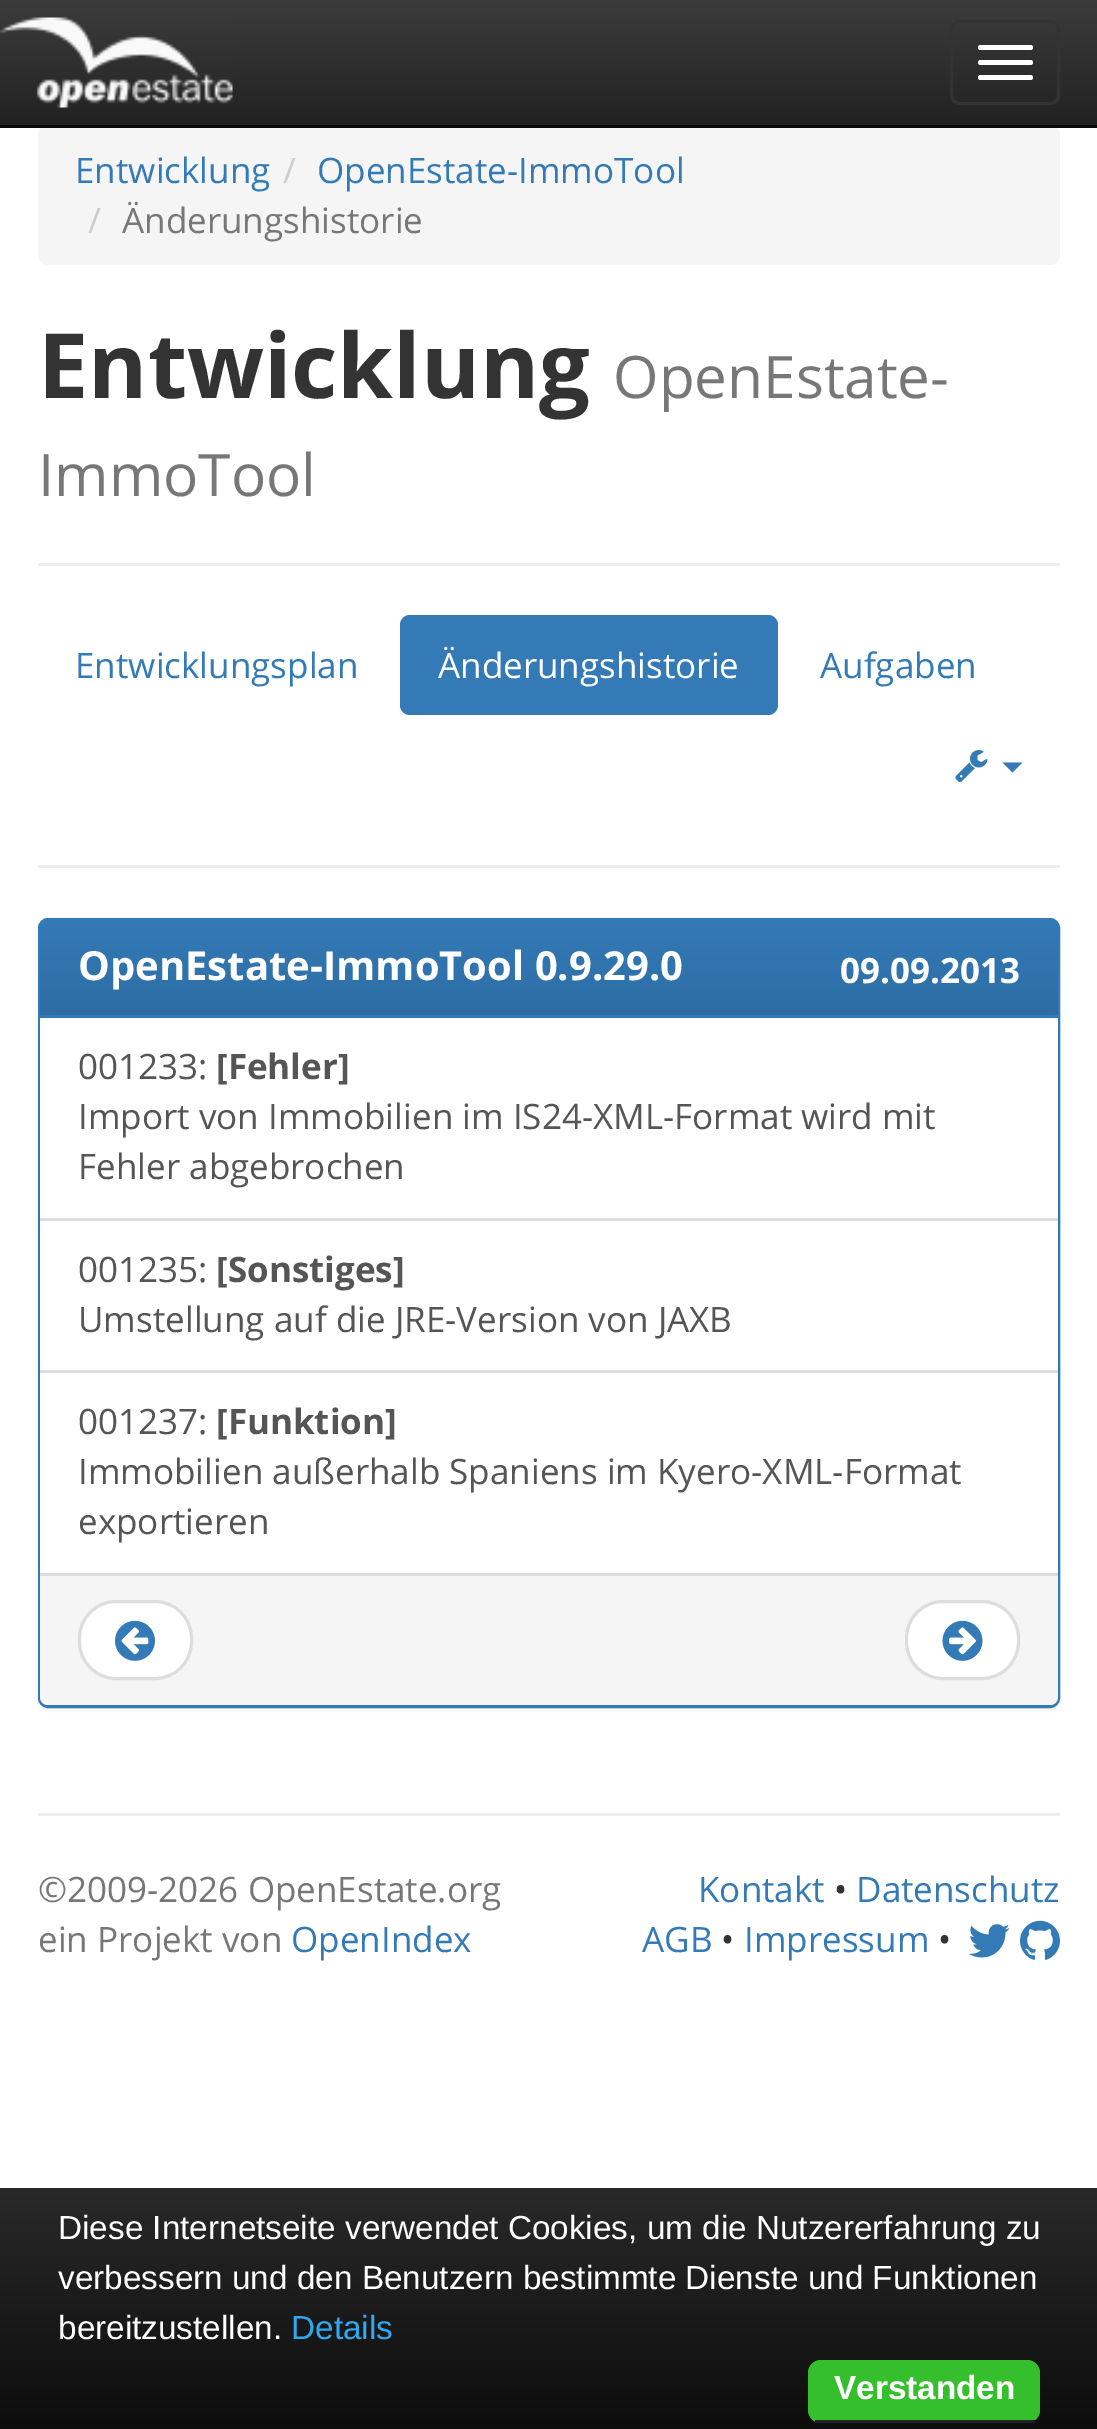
%!PS
<< /PageSize [1097 2429] /PageUsesTransparency true >> setpagedevice
/m/moveto load def
/l/rlineto load def
/c/rcurveto load def
/z/closepath load def
/f/fill load def
/s/stroke load def
/q/gsave load def
/Q_/grestore load def
/w/setlinewidth load def
/C { dup -16 bitshift 255 div exch dup -8 bitshift 255 and 255 div exch 255 and 255 div setrgbcolor } def
/F { [ exch dup neg 0 0 3 -1 roll 0 0 ] selectfont } def
/T { moveto show } def
/R { rectfill } def
/A { dup .setfillconstantalpha .setstrokeconstantalpha } def
/Q { 5 dict begin { /r /h /w /y /x } { exch def } forall
  x r add y moveto x w add y 2 copy h add r arct x w add y h add x 1 index r arct
  x y h add x y r arct x y 2 copy exch w add exch r arct closepath end } def
/S { 12 dict begin { /a /b /q /h /w /y /x } { exch def } forall gsave /was 0 def
  9 -2 -9 { dup b mul 4 div /e exch def 1 sub .425 mul 2.718 exch exp 1 add a .99 .min exch div /now exch def
    1 1 now sub 1 was sub div sub A /was now def
    w h .min e 2 mul add 0 gt { x e sub y e sub w e 2 mul add h e 2 mul add
      q e add b .6 mul add w h .min 2 div e add .min 0 .max Q fill } if } for grestore end } def
/I { 5 dict begin { /h /w /y /x /name } { exch def } forall
  gsave x y translate w h scale
  w h 8 [w 0 0 h 0 0] name (r) file false 3 colorimage grestore end } def
0 .pushpdf14devicefilter
0 2429 translate 1 -1 scale
4 setmiterlimit
16#FFFFFF C
0 0 1097 2429 R
q 0 0 m 1097 0 l 0 125 l -1097 0 l z clip newpath
<< /ShadingType 2 /ColorSpace /DeviceRGB /Coords [549 0 549 125] /Extend [true true] /Function << /FunctionType 2 /Domain [0 1] /C0 [.235 .235 .235] /C1 [.133 .133 .133] /N 1 >> >> shfill Q_
16#F5F5F5 C
38 125 1022 140 10 Q f
16#080808 C
0 125 1097 3 R
(1.rgb) 0 17 233 91 I
16#333333 C
3 w
951.5 21.5 107 82 8.5 Q s
16#FFFFFF C
978 45 55 5 2.5 Q f
978 60 55 5 2.5 Q f
978 75 55 5 2.5 Q f
/OpenSans-Regular 35 F
16#337AB7 C
(Entwicklung) 75 183 T
16#CCCCCC C
(/) 283 183 T
16#337AB7 C
(OpenEstate-ImmoTool) 317 183 T
16#CCCCCC C
(/) 88 233 T
16#777777 C
(Änderungshistorie) 122 233 T
/OpenSans-Bold 90 F
16#333333 C
(Entwicklung) 38 398 T
/OpenSans-Regular 58.5 F
16#777777 C
(OpenEstate-) 613 398 T
(ImmoTool) 38 496 T
16#EEEEEE C
38 563 1022 3 R
/OpenSans-Regular 35 F
16#337AB7 C
(Entwicklungsplan) 75 678 T
400 615 378 100 10 Q f
16#FFFFFF C
(Änderungshistorie) 438 678 T
16#337AB7 C
(Aufgaben) 820 678 T
(2.rgb) 955 750 33 32 I
1002.5 762.5 m 20 0 l -10 10 l z f
16#EEEEEE C
38 865 1022 3 R
16#000000 C
38 920 1022 790 10 2.5 .05 S
16#337AB7 C
39.5 919.5 1019 787 8.5 Q s
48 920 m 1002 0 l 4.5 0 8 3.5 8 8 c 0 90 l -1018 0 l 0 -90 l 0 -4.5 3.5 -8 8 -8 c z f
q 48 920 m 1002 0 l 4.5 0 8 3.5 8 8 c 0 87 l -1018 0 l 0 -87 l 0 -4.5 3.5 -8 8 -8 c z clip newpath
<< /ShadingType 2 /ColorSpace /DeviceRGB /Coords [549 920 549 1015] /Extend [true true] /Function << /FunctionType 2 /Domain [0 1] /C0 [.2 .478 .718] /C1 [.18 .427 .643] /N 1 >> >> shfill Q_
/OpenSans-Bold 40 F
16#FFFFFF C
(OpenEstate-ImmoTool 0.9.29.0) 78 980 T
/OpenSans-Bold 35 F
(09.09.2013) 840 983 T
16#000000 C
40 1020 1018 558 10 2.5 .07 S
16#FFFFFF C
40 1018 1018 200 R
/OpenSans-Regular 35 F
16#555555 C
(001233:) 78 1079 T
/OpenSans-Bold 35 F
([Fehler]) 216 1079 T
/OpenSans-Regular 35 F
(Import von Immobilien im IS24-XML-Format wird mit) 78 1129 T
(Fehler abgebrochen) 78 1179 T
16#FFFFFF C
40 1221 1018 149 R
16#DDDDDD C
40 1218 1018 3 R
40 1370 1018 3 R
16#555555 C
(001235:) 78 1282 T
/OpenSans-Bold 35 F
([Sonstiges]) 216 1282 T
/OpenSans-Regular 35 F
(Umstellung auf die JRE-Version von JAXB) 78 1332 T
16#FFFFFF C
40 1373 1018 200 R
16#F5F5F5 C
40 1575 m 1018 0 l 0 122 l 0 4.5 -3.5 8 -8 8 c -1002 0 l -4.5 0 -8 -3.5 -8 -8 c z f
16#DDDDDD C
40 1573 1018 3 R
16#555555 C
(001237:) 78 1434 T
/OpenSans-Bold 35 F
([Funktion]) 216 1434 T
/OpenSans-Regular 35 F
(Immobilien außerhalb Spaniens im Kyero-XML-Format) 78 1484 T
(exportieren) 78 1534 T
16#FFFFFF C
79.5 1601.5 112 77 36.5 Q q f Q_
16#DDDDDD C
s
(3.rgb) 115 1620 40 41 I
16#FFFFFF C
906.5 1601.5 112 77 36.5 Q q f Q_
16#DDDDDD C
s
(4.rgb) 942 1620 41 41 I
16#EEEEEE C
38 1813 1022 3 R
16#777777 C
(©2009-2026 OpenEstate.org) 38 1902 T
(ein Projekt von) 38 1952 T
16#337AB7 C
(OpenIndex) 291 1952 T
(Kontakt) 698 1902 T
16#333333 C
(•) 834 1902 T
16#337AB7 C
(Datenschutz) 856 1902 T
(AGB) 642 1952 T
16#333333 C
(•) 721 1952 T
16#337AB7 C
(Impressum) 744 1952 T
16#333333 C
(•) 938 1952 T
(5.rgb) 968 1924 42 34 I
(6.rgb) 1020 1920 40 40 I
q 0 2188 m 1097 0 l 0 241 l -1097 0 l z clip newpath
<< /ShadingType 2 /ColorSpace /DeviceRGB /Coords [549 2188 549 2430] /Extend [true true] /Function << /FunctionType 2 /Domain [0 1] /C0 [.161 .161 .161] /C1 [.051 .051 .051] /N 1 >> >> shfill Q_
/LiberationSans-Regular 33.3 F
16#FFFFFF C
(Diese Internetseite verwendet Cookies, um die Nutzererfahrung zu) 58 2239 T
(verbessern und den Benutzern bestimmte Dienste und Funktionen) 58 2289 T
(bereitzustellen.) 58 2339 T
16#31A8F0 C
(Details) 291 2339 T
16#36BF2D C
808 2360 232 63 13 Q f
16#222222 C
815 2420 220 3 R
/LiberationSans-Bold 33.3 F
16#FFFFFF C
(Verstanden) 834 2399 T
.poppdf14devicefilter showpage
